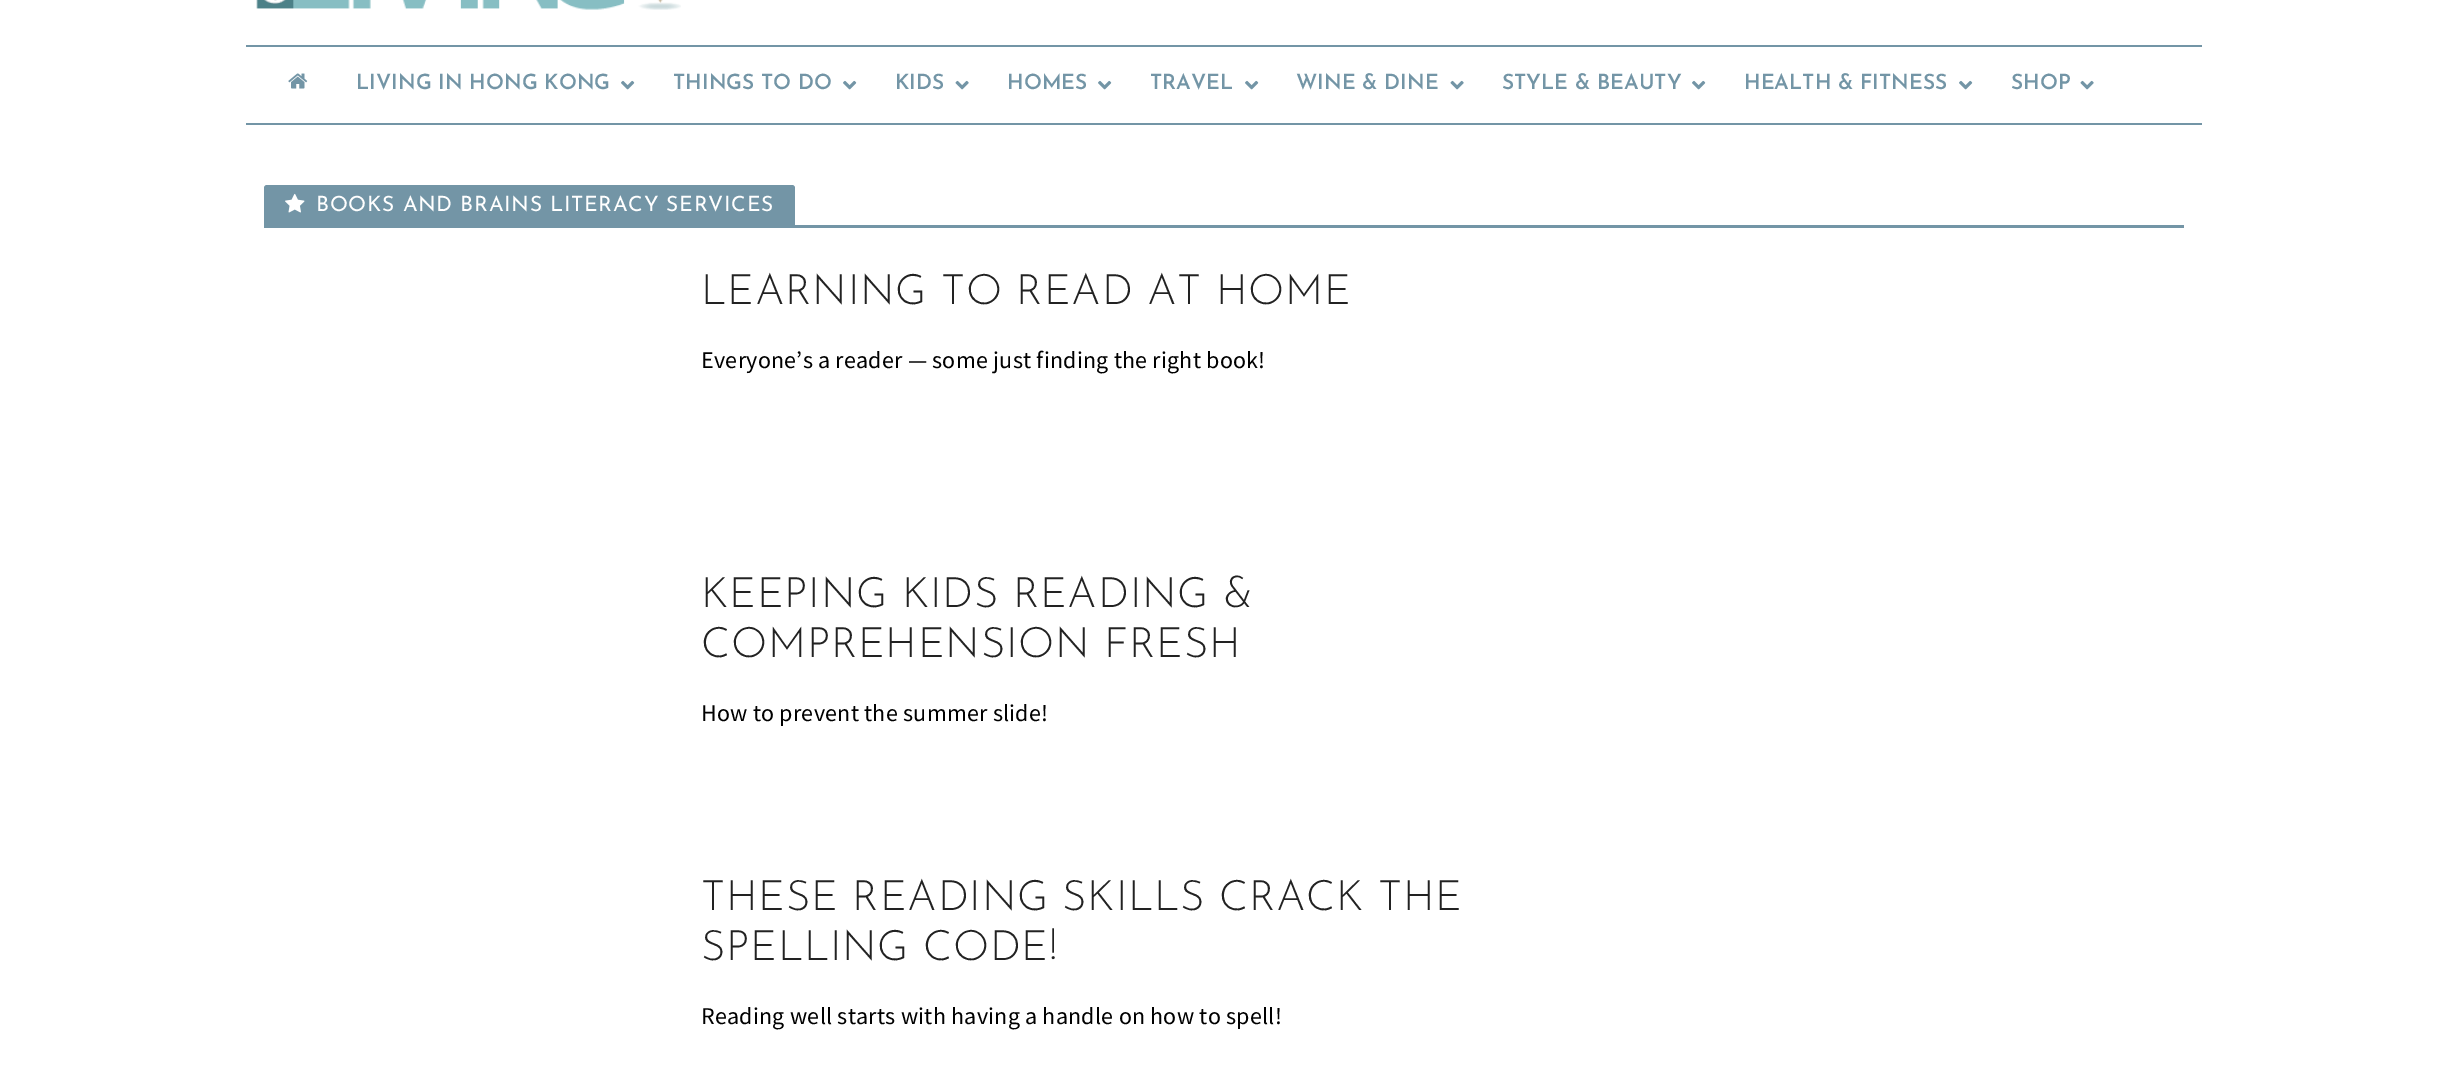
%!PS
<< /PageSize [2448 1082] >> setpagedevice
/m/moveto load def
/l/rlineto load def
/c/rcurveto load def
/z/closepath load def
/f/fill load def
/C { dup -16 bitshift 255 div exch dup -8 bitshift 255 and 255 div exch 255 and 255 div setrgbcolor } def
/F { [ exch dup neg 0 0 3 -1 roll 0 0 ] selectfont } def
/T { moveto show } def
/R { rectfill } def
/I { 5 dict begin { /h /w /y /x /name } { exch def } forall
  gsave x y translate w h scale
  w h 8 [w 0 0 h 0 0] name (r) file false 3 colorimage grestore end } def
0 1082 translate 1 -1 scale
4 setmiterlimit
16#FFFFFF C
0 0 2448 1082 R
(1.rgb) 256 0 425 10 I
16#7395A6 C
246 45 1956 2 R
246 123 1956 2 R
(2.rgb) 288 73 20 16 I
/JosefinSans-SemiBold 21 F
(LIVING IN HONG KONG) 356 89 T
(3.rgb) 621 80 14 10 I
(THINGS TO DO) 673 89 T
(3.rgb) 843 80 14 10 I
(KIDS) 895 89 T
(4.rgb) 955 80 14 10 I
(HOMES) 1007 89 T
(3.rgb) 1098 80 14 10 I
(TRAVEL) 1150 89 T
(3.rgb) 1245 80 14 10 I
(WINE & DINE) 1296 89 T
(4.rgb) 1450 80 14 10 I
(STYLE & BEAUTY) 1502 89 T
(3.rgb) 1692 80 14 10 I
(HEALTH & FITNESS) 1744 89 T
(3.rgb) 1959 80 14 10 I
(SHOP) 2011 89 T
(4.rgb) 2080 80 14 10 I
264 225 1920 3 R
267 185 m 525 0 l 1.5 0 3 1.5 3 3 c 0 37 l -531 0 l 0 -37 l 0 -1.5 1.5 -3 3 -3 c z f
(5.rgb) 285 193 20 20 I
/JosefinSans-Regular 21 F
16#FFFFFF C
316 211 m .75 0 (BOOKS AND BRAINS LITERACY SERVICES) ashow
/JosefinSans-Light 42 F
16#222222 C
701 304 m .75 0 (LEARNING TO READ AT HOME) ashow
/SourceSansPro-Regular 24 F
16#000000 C
701 368 m .25 0 (Everyone’s a reader — some just finding the right book!) ashow
/JosefinSans-Light 42 F
16#222222 C
701 607 m .75 0 (KEEPING KIDS READING &) ashow
701 657 m .75 0 (COMPREHENSION FRESH) ashow
/SourceSansPro-Regular 24 F
16#000000 C
701 721 m .25 0 (How to prevent the summer slide!) ashow
/JosefinSans-Light 42 F
16#222222 C
701 910 m .75 0 (THESE READING SKILLS CRACK THE) ashow
701 960 m .75 0 (SPELLING CODE!) ashow
/SourceSansPro-Regular 24 F
16#000000 C
701 1024 m .25 0 (Reading well starts with having a handle on how to spell!) ashow
showpage
